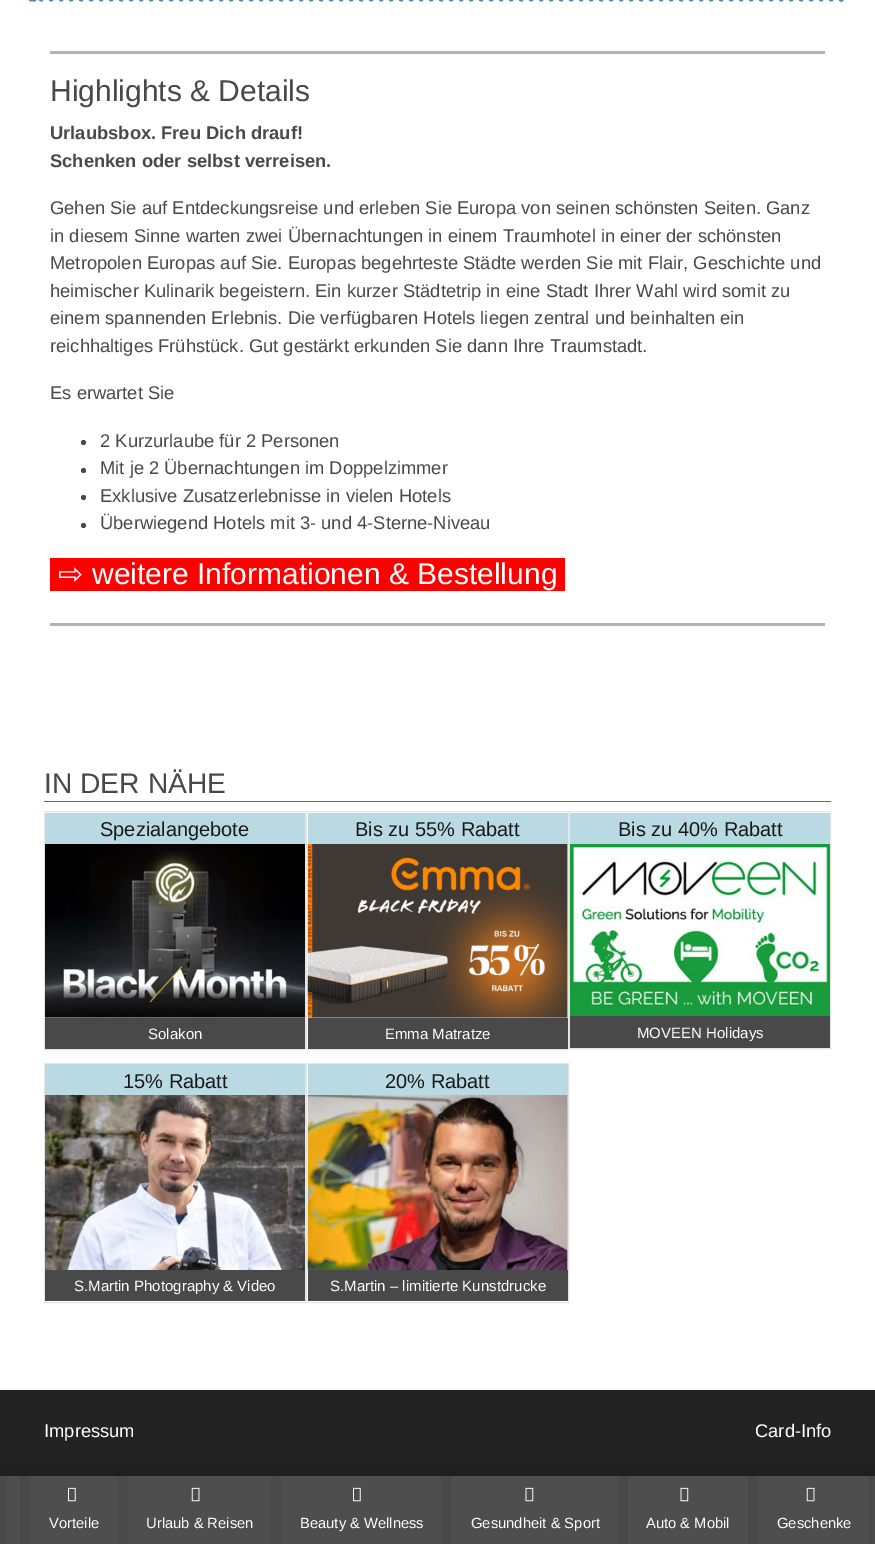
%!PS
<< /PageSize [875 1544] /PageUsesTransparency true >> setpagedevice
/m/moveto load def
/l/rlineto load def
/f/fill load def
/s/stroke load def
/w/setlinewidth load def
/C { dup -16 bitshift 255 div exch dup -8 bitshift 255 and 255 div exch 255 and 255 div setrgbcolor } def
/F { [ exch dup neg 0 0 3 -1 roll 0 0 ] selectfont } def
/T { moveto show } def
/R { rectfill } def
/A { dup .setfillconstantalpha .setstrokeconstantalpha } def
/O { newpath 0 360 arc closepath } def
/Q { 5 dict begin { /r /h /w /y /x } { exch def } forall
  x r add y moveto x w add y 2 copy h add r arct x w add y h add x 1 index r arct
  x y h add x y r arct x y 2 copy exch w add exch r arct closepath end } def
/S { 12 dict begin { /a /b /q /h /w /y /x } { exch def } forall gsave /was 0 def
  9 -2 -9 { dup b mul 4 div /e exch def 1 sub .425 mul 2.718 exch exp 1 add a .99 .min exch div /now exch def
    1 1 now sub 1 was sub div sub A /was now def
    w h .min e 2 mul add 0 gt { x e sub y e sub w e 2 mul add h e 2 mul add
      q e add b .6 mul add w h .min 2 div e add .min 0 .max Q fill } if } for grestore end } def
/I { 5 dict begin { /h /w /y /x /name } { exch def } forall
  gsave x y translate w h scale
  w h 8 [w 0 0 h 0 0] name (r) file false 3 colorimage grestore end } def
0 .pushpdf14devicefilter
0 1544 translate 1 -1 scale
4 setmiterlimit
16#FFFFFF C
0 0 875 1544 R
16#4B91AA C
5 w
1 setlinecap
[0 10] 0 setdash
841 -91 m 0 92 l s
31 -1 m 813 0 l s
34 -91 m 0 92 l s
16#B3B3B3 C
50 51 775 3 R
/LiberationSans-Regular 30 F
16#494949 C
(Highlights & Details) 50 101 T
/LiberationSans-Bold 18.35 F
(Urlaubsbox. Freu Dich drauf!) 50 139 T
(Schenken oder selbst verreisen.) 50 167 T
/LiberationSans-Regular 18.35 F
(Gehen Sie auf Entdeckungsreise und erleben Sie Europa von seinen schönsten Seiten. Ganz) 50 214 T
(in diesem Sinne warten zwei Übernachtungen in einem Traumhotel in einer der schönsten) 50 242 T
(Metropolen Europas auf Sie. Europas begehrteste Städte werden Sie mit Flair, Geschichte und) 50 269 T
(heimischer Kulinarik begeistern. Ein kurzer Städtetrip in eine Stadt Ihrer Wahl wird somit zu) 50 297 T
(einem spannenden Erlebnis. Die verfügbaren Hotels liegen zentral und beinhalten ein) 50 324 T
(reichhaltiges Frühstück. Gut gestärkt erkunden Sie dann Ihre Traumstadt.) 50 352 T
(Es erwartet Sie) 50 399 T
83.5 442.5 2.5 O f
(2 Kurzurlaube für 2 Personen) 100 447 T
83.5 470.5 2.5 O f
(Mit je 2 Übernachtungen im Doppelzimmer) 100 474 T
83.5 497.5 2.5 O f
(Exklusive Zusatzerlebnisse in vielen Hotels) 100 502 T
83.5 525.5 2.5 O f
(Überwiegend Hotels mit 3- und 4-Sterne-Niveau) 100 529 T
16#FF0000 C
50 558 515 33 R
/DejaVuSans-Regular 30 F
16#FFFFFF C
(⇨) 58 584 T
/LiberationSans-Regular 30 F
(weitere Informationen & Bestellung) 92 584 T
16#B3B3B3 C
50 623 775 3 R
16#686868 C
44 801 787 1 R
/LiberationSans-Regular 28.25 F
16#494949 C
(IN DER NÄHE) 44 793 T
16#E5E5E5 C
1 w
0 setlinecap
[] 0 setdash
44.5 811.5 261 238 rectstroke
16#BADAE3 C
45 813 260 31 R
/LiberationSans-Regular 20 F
16#191919 C
(Spezialangebote) 100 836 T
16#CCCCCC C
45 1017 260 1 R
(1.rgb) 45 844 260 174 I
16#494949 C
45 1018 260 31 R
/LiberationSans-Regular 15 F
16#FFFFFF C
(Solakon) 148 1039 T
16#E5E5E5 C
306.5 811.5 262 238 rectstroke
16#CCCCCC C
308 844 260 174 R
(2.rgb) 307 843 261 175 I
16#BADAE3 C
308 813 260 31 R
/LiberationSans-Regular 20 F
16#191919 C
(Bis zu 55% Rabatt) 355 836 T
16#494949 C
308 1018 260 31 R
/LiberationSans-Regular 15 F
16#FFFFFF C
(Emma Matratze) 385 1039 T
16#E5E5E5 C
569.5 811.5 261 237 rectstroke
16#BADAE3 C
570 813 260 31 R
/LiberationSans-Regular 20 F
16#191919 C
(Bis zu 40% Rabatt) 618 836 T
(3.rgb) 570 844 260 172 I
16#494949 C
570 1016 260 32 R
/LiberationSans-Regular 15 F
16#FFFFFF C
(MOVEEN Holidays) 637 1038 T
16#E5E5E5 C
44.5 1063.5 261 239 rectstroke
16#BADAE3 C
45 1064 260 31 R
/LiberationSans-Regular 20 F
16#191919 C
(15% Rabatt) 123 1088 T
(4.rgb) 45 1095 260 175 I
16#494949 C
45 1270 260 31 R
/LiberationSans-Regular 15 F
16#FFFFFF C
(S.Martin Photography & Video) 74 1291 T
16#E5E5E5 C
306.5 1063.5 262 239 rectstroke
16#BADAE3 C
308 1064 260 31 R
/LiberationSans-Regular 20 F
16#191919 C
(20% Rabatt) 385 1088 T
16#CCCCCC C
567 1095 1 175 R
(5.rgb) 307 1095 261 175 I
16#494949 C
308 1270 260 31 R
/LiberationSans-Regular 15 F
16#FFFFFF C
(S.Martin – limitierte Kunstdrucke) 330 1291 T
16#232323 C
0 1390 875 86 R
/LiberationSans-Regular 18.35 F
16#FFFFFF C
(Impressum) 44 1437 T
(Card-Info) 755 1437 T
16#000000 C
0 1471 875 69 0 6 .18 S
16#494949 C
0 1476 875 68 R
16#4E4E4E C
6 1476 14 68 R
30 1476 88 68 R
(6.rgb) 68 1487 8 15 I
/LiberationSans-Regular 14.75 F
16#FFFFFF C
(Vorteile) 49 1528 T
16#4E4E4E C
128 1476 143 68 R
(7.rgb) 191 1487 9 15 I
16#FFFFFF C
(Urlaub & Reisen) 146 1528 T
16#4E4E4E C
281 1476 160 68 R
(6.rgb) 353 1487 8 15 I
16#FFFFFF C
(Beauty & Wellness) 300 1528 T
16#4E4E4E C
451 1476 167 68 R
(8.rgb) 525 1487 9 15 I
16#FFFFFF C
(Gesundheit & Sport) 471 1528 T
16#4E4E4E C
628 1476 120 68 R
(8.rgb) 680 1487 9 15 I
16#FFFFFF C
(Auto & Mobil) 646 1528 T
16#4E4E4E C
758 1476 111 68 R
(7.rgb) 806 1487 9 15 I
16#FFFFFF C
(Geschenke) 777 1528 T
.poppdf14devicefilter showpage
